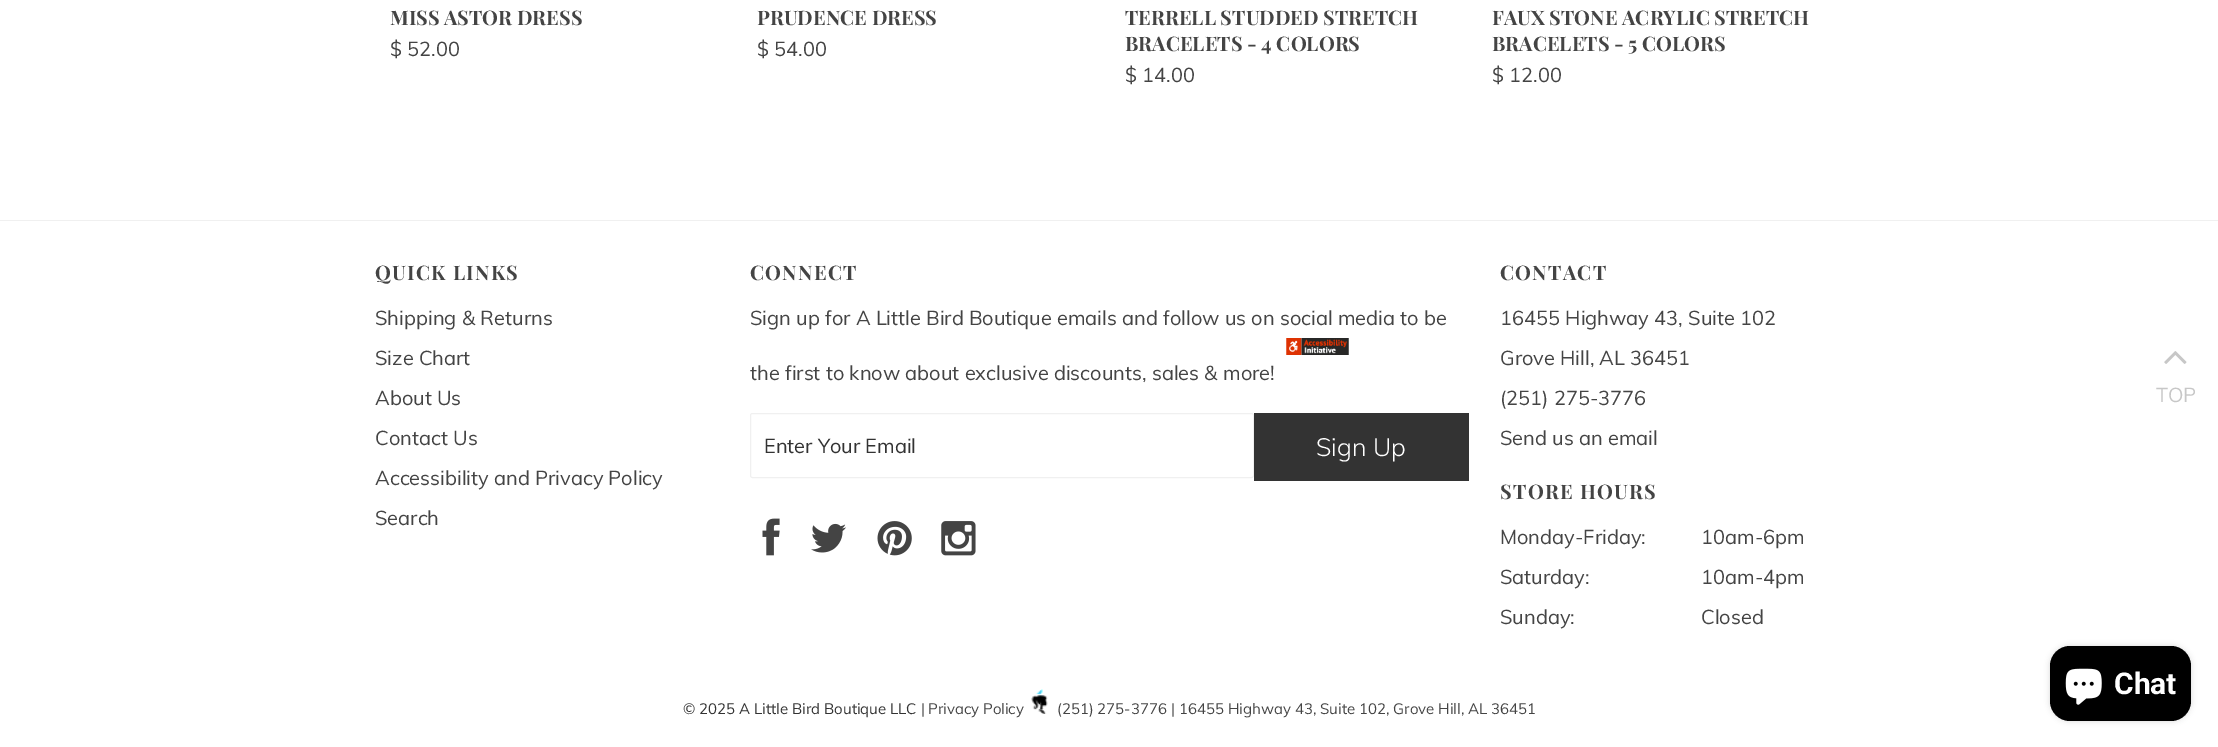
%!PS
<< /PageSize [2218 747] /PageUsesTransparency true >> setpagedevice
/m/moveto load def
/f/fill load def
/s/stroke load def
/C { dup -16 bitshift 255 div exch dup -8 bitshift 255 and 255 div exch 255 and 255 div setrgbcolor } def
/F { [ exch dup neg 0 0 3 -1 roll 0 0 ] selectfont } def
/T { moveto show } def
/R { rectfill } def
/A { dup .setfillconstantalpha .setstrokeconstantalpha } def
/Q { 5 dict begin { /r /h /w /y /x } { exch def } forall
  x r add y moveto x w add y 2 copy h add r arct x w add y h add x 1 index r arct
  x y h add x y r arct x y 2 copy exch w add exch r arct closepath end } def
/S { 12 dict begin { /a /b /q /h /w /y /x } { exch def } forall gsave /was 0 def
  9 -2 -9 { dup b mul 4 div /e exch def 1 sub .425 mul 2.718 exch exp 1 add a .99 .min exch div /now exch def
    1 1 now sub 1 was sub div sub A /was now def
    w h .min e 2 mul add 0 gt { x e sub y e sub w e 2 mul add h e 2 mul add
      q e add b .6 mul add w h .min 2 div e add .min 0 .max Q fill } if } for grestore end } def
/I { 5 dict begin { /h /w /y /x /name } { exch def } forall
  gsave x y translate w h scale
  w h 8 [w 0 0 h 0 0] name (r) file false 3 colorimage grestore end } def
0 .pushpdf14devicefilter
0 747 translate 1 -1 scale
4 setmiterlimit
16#FFFFFF C
0 0 2218 747 R
/PlayfairDisplay-Bold 20 F
16#444444 C
(MISS ASTOR DRESS) 390 25 T
/Muli-Regular 20 F
($ 52.00) 390 56 T
/PlayfairDisplay-Bold 20 F
(PRUDENCE DRESS) 757 25 T
/Muli-Regular 20 F
($ 54.00) 757 56 T
/PlayfairDisplay-Bold 20 F
(TERRELL STUDDED STRETCH) 1125 25 T
(BRACELETS - 4 COLORS) 1125 51 T
/Muli-Regular 20 F
($ 14.00) 1125 82 T
/PlayfairDisplay-Bold 20 F
(FAUX STONE ACRYLIC STRETCH) 1492 25 T
(BRACELETS - 5 COLORS) 1492 51 T
/Muli-Regular 20 F
($ 12.00) 1492 82 T
16#F0F0F0 C
0 220 2218 1 R
/PlayfairDisplay-Bold 20 F
16#444444 C
375 280 m 1.25 0 (QUICK LINKS) ashow
/Muli-Regular 20 F
(Shipping & Returns) 375 325 T
(Size Chart) 375 365 T
(About Us) 375 405 T
(Contact Us) 375 445 T
(Accessibility and Privacy Policy) 375 485 T
(Search) 375 525 T
/PlayfairDisplay-Bold 20 F
750 280 m 1.25 0 (CONNECT) ashow
/Muli-Regular 20 F
(Sign up for A Little Bird Boutique emails and follow us on social media to be) 750 325 T
(1.rgb) 1286 338 63 17 I
(the first to know about exclusive discounts, sales & more!) 750 380 T
16#F0F0F0 C
750.5 413.5 503 64 2 Q s
16#333333 C
(Enter Your Email) 764 453 T
1254 413 215 68 R
/Muli-Light 25 F
16#FFFFFF C
(Sign Up) 1316 456 T
(2.rgb) 762 518 18 38 I
(3.rgb) 811 523 35 30 I
(4.rgb) 877 521 35 35 I
(5.rgb) 941 521 35 35 I
/PlayfairDisplay-Bold 20 F
16#444444 C
1500 280 m 1.25 0 (CONTACT) ashow
/Muli-Regular 20 F
(16455 Highway 43, Suite 102) 1500 325 T
(Grove Hill, AL 36451) 1500 365 T
(\(251\) 275-3776) 1500 405 T
(Send us an email) 1500 445 T
/PlayfairDisplay-Bold 20 F
1500 499 m 1.25 0 (STORE HOURS) ashow
/Muli-Regular 20 F
(Monday-Friday:) 1500 544 T
(10am-6pm) 1701 544 T
(Saturday:) 1500 584 T
(10am-4pm) 1701 584 T
(Sunday:) 1500 624 T
(Closed) 1701 624 T
/Muli-Regular 15 F
16#333333 C
(© 2025 A Little Bird Boutique LLC |) 683 714 T
16#444444 C
(Privacy Policy) 928 714 T
(6.rgb) 1031 689 17 25 I
(\(251\) 275-3776) 1057 714 T
16#333333 C
(|) 1171 714 T
16#444444 C
(16455 Highway 43, Suite 102, Grove Hill, AL 36451) 1179 714 T
(7.rgb) 2164 351 23 13 I
/Muli-Regular 20 F
16#C7C7C7 C
(TOP) 2156 402 T
16#000000 C
2050 646 141 75 20 3 .15 S
2050 646 141 75 20 Q f
(8.rgb) 2065 668 37 37 I
/Roboto-Bold 30 F
16#FFFFFF C
(Chat) 2114 694 T
.poppdf14devicefilter showpage
